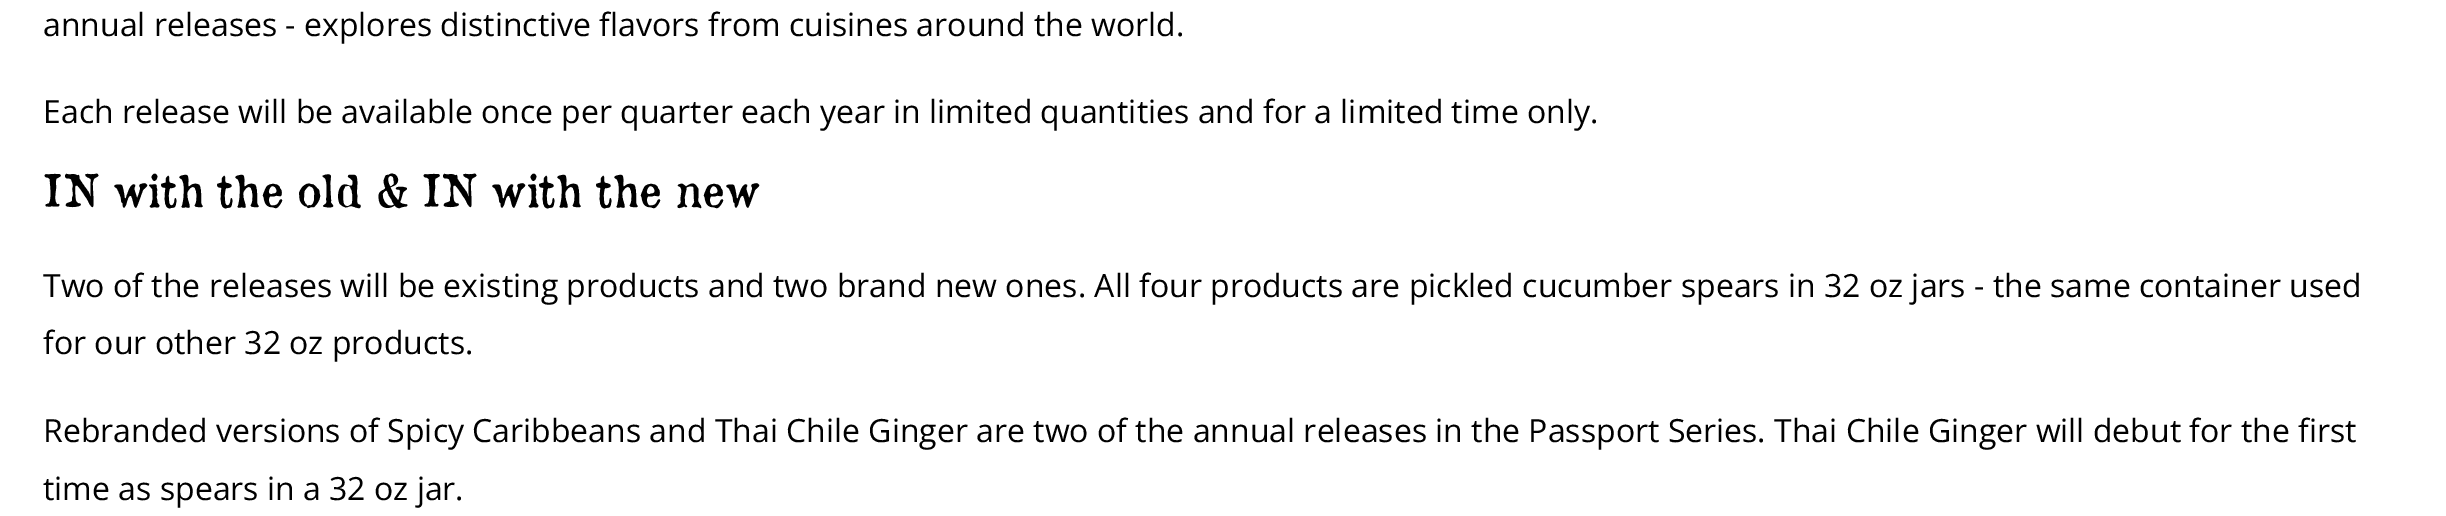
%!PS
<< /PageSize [2446 516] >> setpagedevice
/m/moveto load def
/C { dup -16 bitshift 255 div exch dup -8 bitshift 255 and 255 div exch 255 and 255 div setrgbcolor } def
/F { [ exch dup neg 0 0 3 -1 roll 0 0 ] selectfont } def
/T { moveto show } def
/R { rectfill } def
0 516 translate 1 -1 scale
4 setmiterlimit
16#FFFFFF C
0 0 2446 516 R
/OpenSans-Regular 32 F
16#000000 C
(annual releases - explores distinctive flavors from cuisines around the world.) 43 36 T
(Each release will be available once per quarter each year in limited quantities and for a limited time only.) 43 123 T
/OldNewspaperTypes-Medium 44 F
43 207 m -1.5 0 32 (IN with the old & IN with the new) widthshow
/OpenSans-Regular 32 F
(Two of the releases will be existing products and two brand new ones. All four products are pickled cucumber spears in 32 oz jars - the same container used) 43 297 T
(for our other 32 oz products.) 43 354 T
(Rebranded versions of Spicy Caribbeans and Thai Chile Ginger are two of the annual releases in the Passport Series. Thai Chile Ginger will debut for the first) 43 442 T
(time as spears in a 32 oz jar.) 43 500 T
showpage
